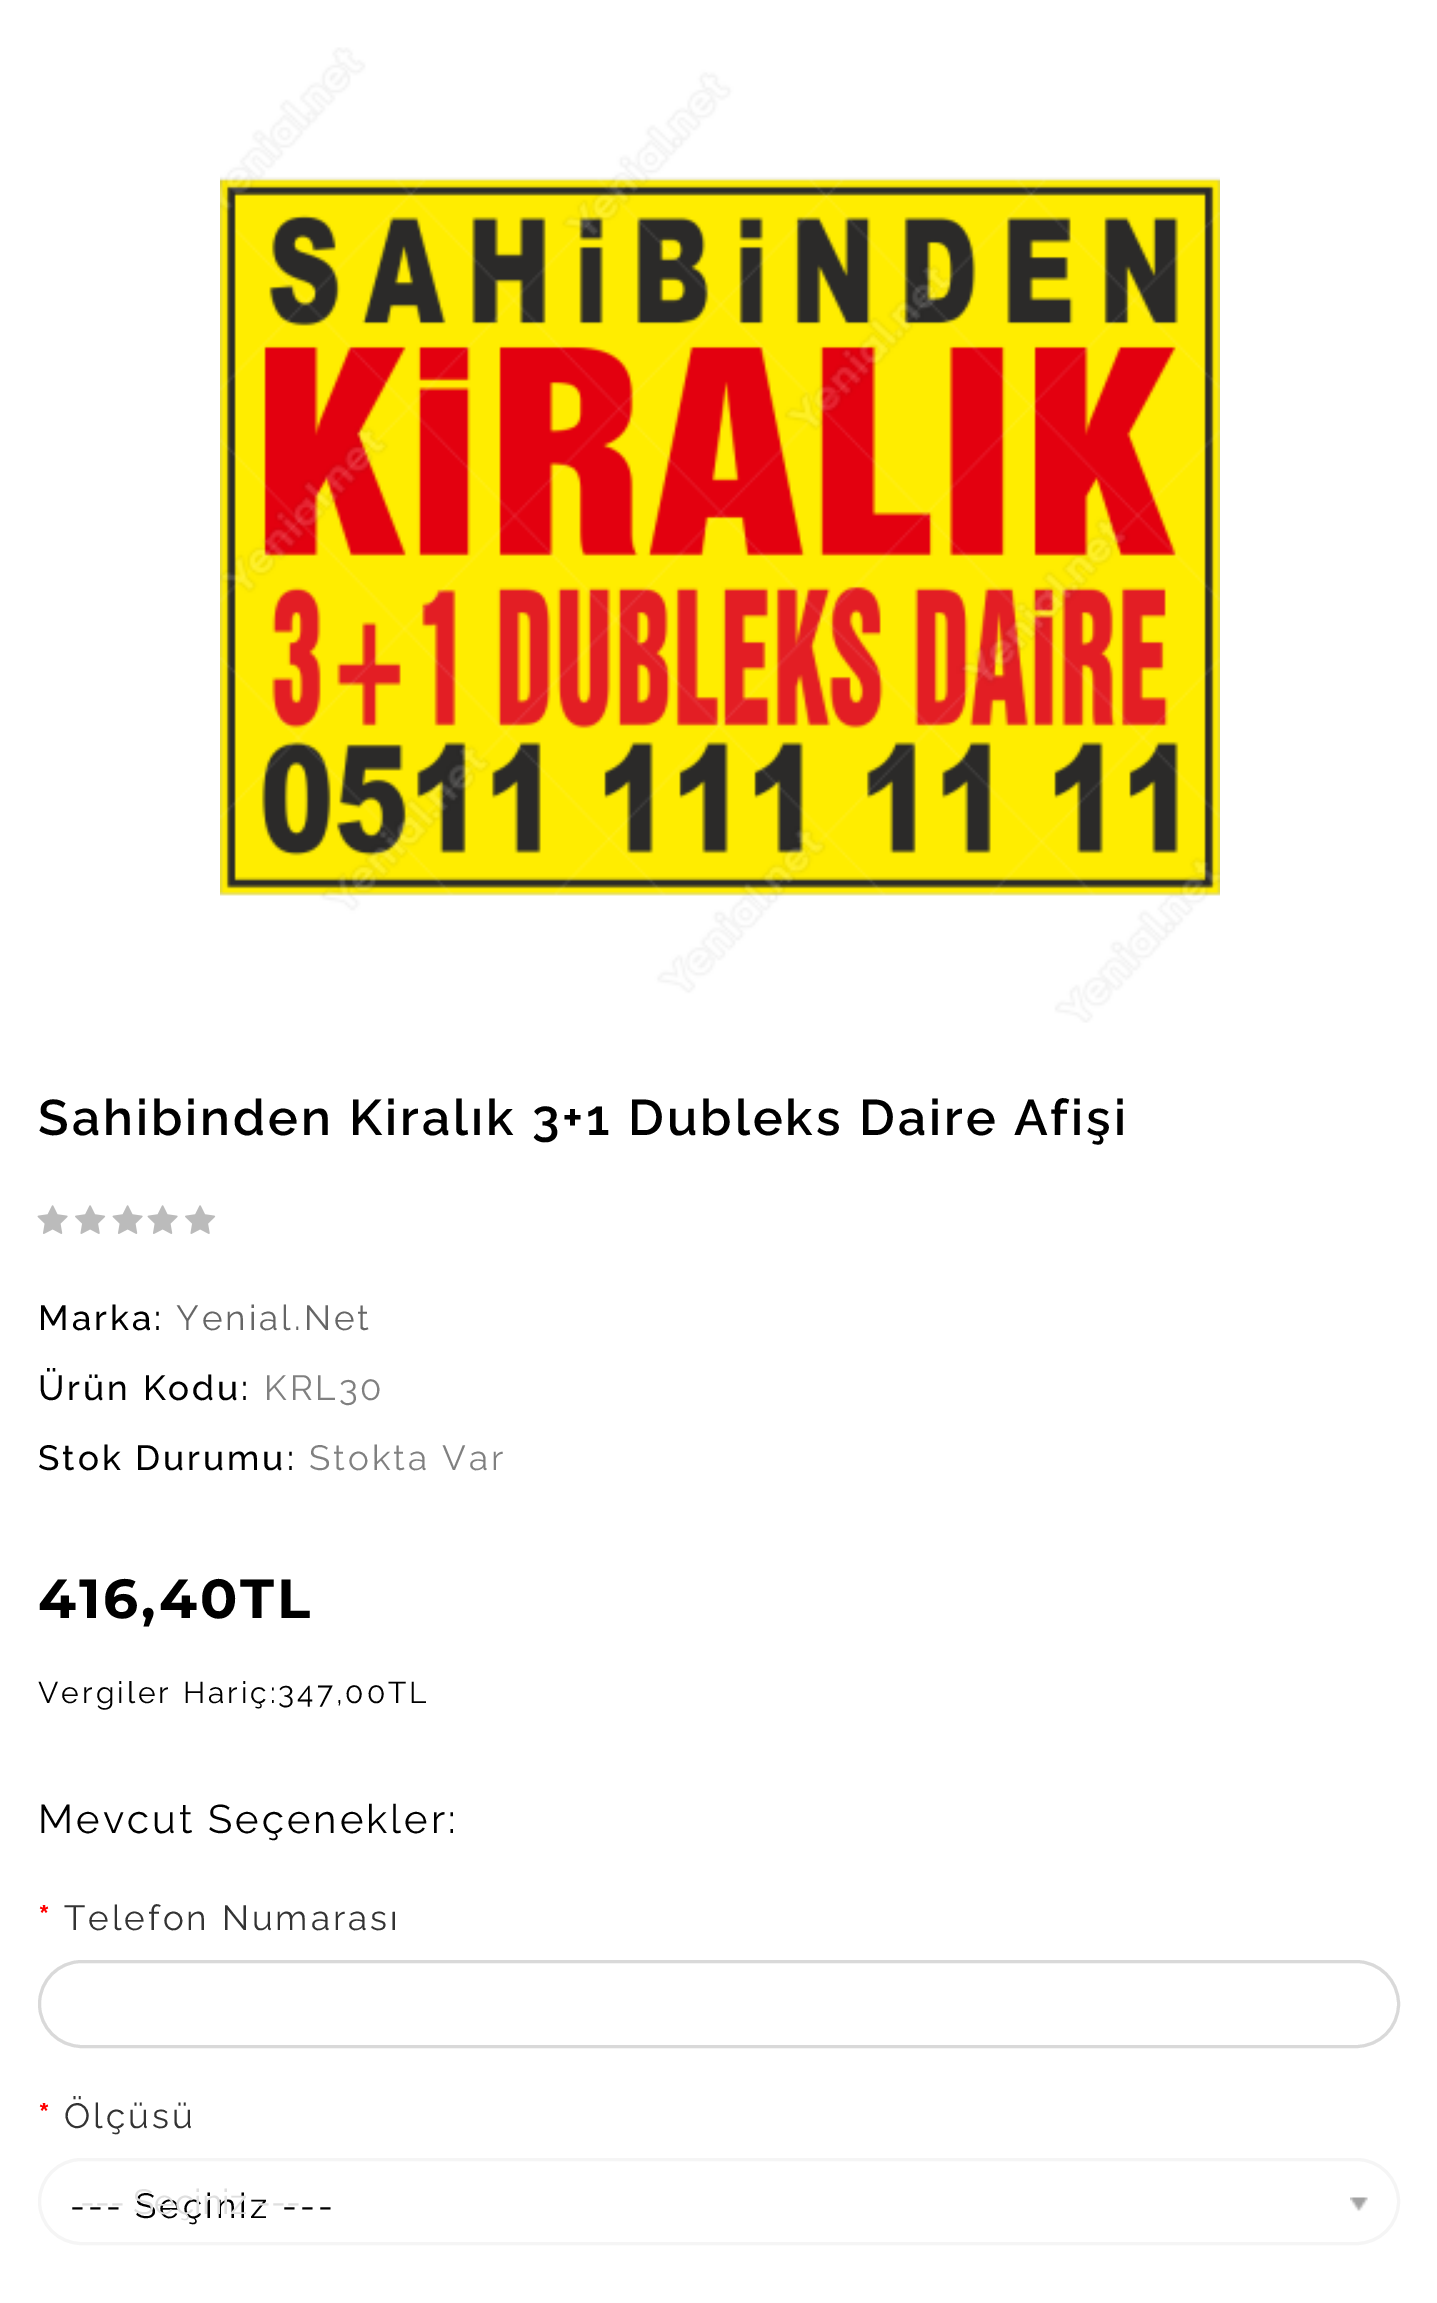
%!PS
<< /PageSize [1437 2303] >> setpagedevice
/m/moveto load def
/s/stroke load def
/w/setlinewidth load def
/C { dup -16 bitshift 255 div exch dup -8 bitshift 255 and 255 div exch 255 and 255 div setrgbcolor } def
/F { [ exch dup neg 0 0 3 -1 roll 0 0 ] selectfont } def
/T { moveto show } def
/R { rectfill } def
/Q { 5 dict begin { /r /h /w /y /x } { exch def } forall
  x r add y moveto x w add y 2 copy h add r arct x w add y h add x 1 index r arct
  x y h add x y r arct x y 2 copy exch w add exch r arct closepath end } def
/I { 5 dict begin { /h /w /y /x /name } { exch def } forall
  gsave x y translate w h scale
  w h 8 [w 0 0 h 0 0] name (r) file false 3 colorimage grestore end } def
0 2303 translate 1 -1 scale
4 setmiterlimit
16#FFFFFF C
0 0 1437 2303 R
(1.rgb) 220 47 1000 976 I
/Raleway-SemiBold 50 F
16#000000 C
38 1135 m 3 0 (Sahibinden Kiralık 3+1 Dubleks Daire Afişi) ashow
(2.rgb) 37 1205 31 29 I
(3.rgb) 75 1205 31 29 I
(2.rgb) 112 1205 31 29 I
(2.rgb) 147 1205 31 29 I
(3.rgb) 185 1205 31 29 I
/Raleway-Medium 35 F
38 1330 m 3 0 (Marka:) ashow
/Raleway-Regular 35 F
16#666666 C
176 1330 m 3 0 (Yenial.Net) ashow
/Raleway-Medium 35 F
16#000000 C
38 1400 m 3 0 (Ürün Kodu:) ashow
/Raleway-Regular 35 F
16#808080 C
264 1400 m 3 0 (KRL30) ashow
/Raleway-Medium 35 F
16#000000 C
38 1470 m 3 0 (Stok Durumu:) ashow
/Raleway-Regular 35 F
16#808080 C
309 1470 m 3 0 (Stokta Var) ashow
/Montserrat-Bold 55 F
16#000000 C
38 1618 m 3 0 (416,40TL) ashow
/Raleway-Regular 30 F
38 1703 m 3 0 (Vergiler Hariç:347,00TL) ashow
/Raleway-Regular 40 F
38 1833 m 3 0 (Mevcut Seçenekler:) ashow
/Raleway-Bold 35 F
16#FF0000 C
38 1930 m 3 0 (*) ashow
/Raleway-Regular 35 F
16#333333 C
64 1930 m 3 0 (Telefon Numarası) ashow
16#D9D9D9 C
3 w
39.5 1961.5 1359 85 42.5 Q s
/Raleway-Bold 35 F
16#FF0000 C
38 2128 m 3 0 (*) ashow
/Raleway-Regular 35 F
16#333333 C
64 2128 m 3 0 (Ölçüsü) ashow
16#F5F5F5 C
39.5 2159.5 1359 84 42 Q s
16#000000 C
70 2218 m 3 0 (--- Seçiniz ---) ashow
16#DFDFDF C
(--- Seçiniz ---) 80 2214 T
(4.rgb) 1350 2197 18 15 I
showpage
